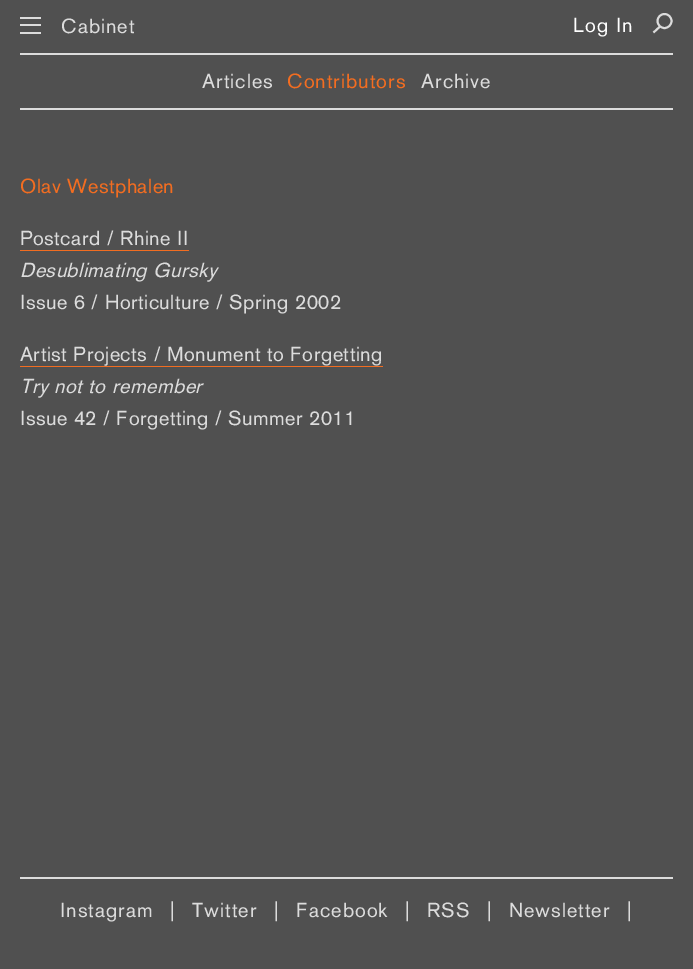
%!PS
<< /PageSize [693 969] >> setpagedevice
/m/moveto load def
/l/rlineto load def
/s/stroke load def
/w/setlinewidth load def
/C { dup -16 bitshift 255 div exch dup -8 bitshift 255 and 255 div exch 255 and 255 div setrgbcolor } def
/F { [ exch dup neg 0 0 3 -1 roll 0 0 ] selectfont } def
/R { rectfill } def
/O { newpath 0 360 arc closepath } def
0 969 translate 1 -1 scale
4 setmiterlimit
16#505050 C
0 0 693 969 R
16#DCDCDC C
20 53 653 2 R
20 17 21 2 R
20 24 21 2 R
20 32 21 2 R
/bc-Regular 20 F
61 33 m 1 0 (Cabinet) ashow
16#FFFFFF C
573 32 m 1 0 (Log In) ashow
16#DCDCDC C
1.9 w
664.5 21 7 O s
660 26.5 m -6.5 6 l s
20 108 653 2 R
202 88 m 1 0 (Articles) ashow
16#F26D21 C
287 88 m 1 0 (Contributors) ashow
16#DCDCDC C
421 88 m 1 0 (Archive) ashow
16#F26D21 C
20 193 m .5 0 (Olav Westphalen) ashow
16#DCDCDC C
20 245 m .5 0 (Postcard / Rhine II) ashow
16#F26D21 C
20 250 169 1 R
/bc-Italic 20 F
16#DCDCDC C
20 277 m .5 0 (Desublimating Gursky) ashow
/bc-Regular 20 F
20 309 m .5 0 (Issue 6 / Horticulture / Spring 2002) ashow
20 361 m .5 0 (Artist Projects / Monument to Forgetting) ashow
16#F26D21 C
20 366 363 1 R
/bc-Italic 20 F
16#DCDCDC C
20 393 m .5 0 (Try not to remember) ashow
/bc-Regular 20 F
20 425 m .5 0 (Issue 42 / Forgetting / Summer 2011) ashow
20 877 653 2 R
60 917 m 1 0 (Instagram) ashow
170 917 m 1 0 (|) ashow
192 917 m 1 0 (Twitter) ashow
274 917 m 1 0 (|) ashow
296 917 m 1 0 (Facebook) ashow
405 917 m 1 0 (|) ashow
427 917 m 1 0 (RSS) ashow
487 917 m 1 0 (|) ashow
509 917 m 1 0 (Newsletter) ashow
627 917 m 1 0 (|) ashow
showpage
